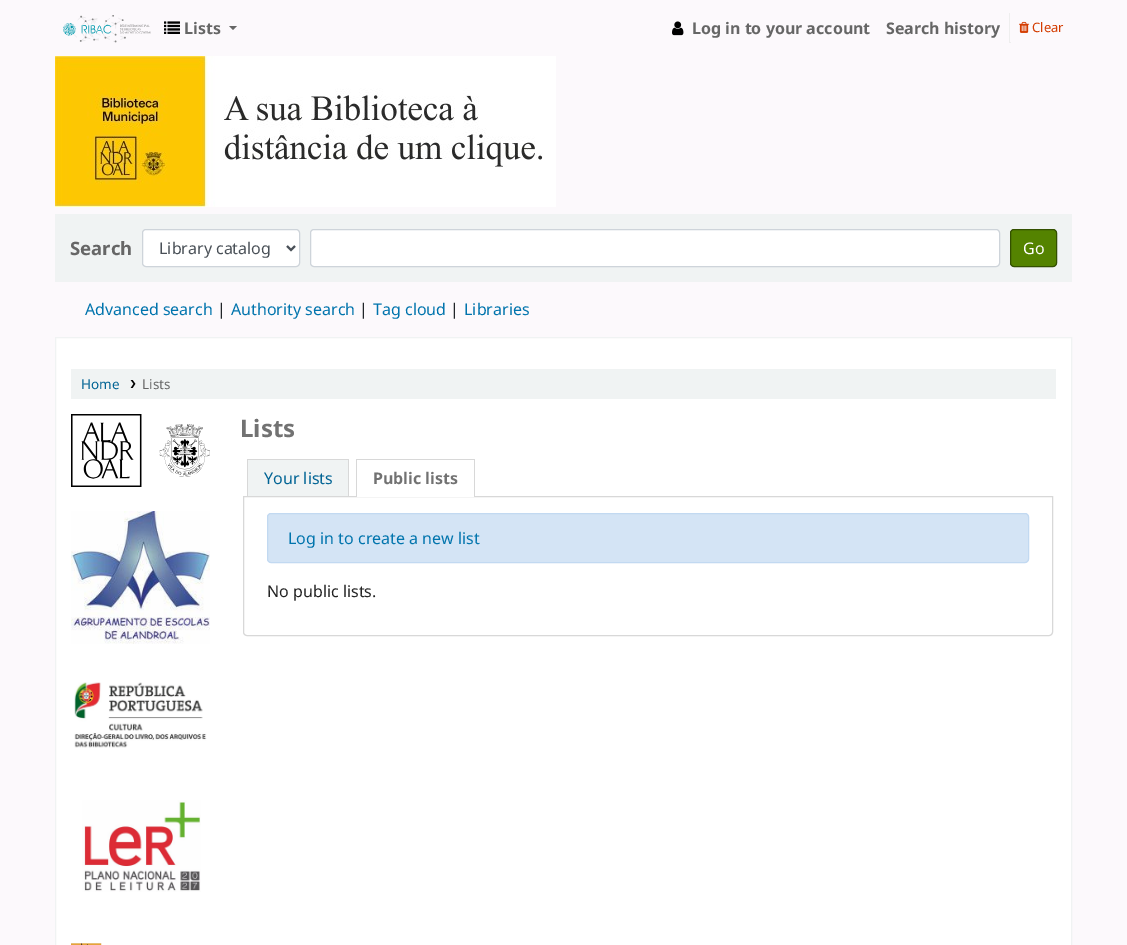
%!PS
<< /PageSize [1127 945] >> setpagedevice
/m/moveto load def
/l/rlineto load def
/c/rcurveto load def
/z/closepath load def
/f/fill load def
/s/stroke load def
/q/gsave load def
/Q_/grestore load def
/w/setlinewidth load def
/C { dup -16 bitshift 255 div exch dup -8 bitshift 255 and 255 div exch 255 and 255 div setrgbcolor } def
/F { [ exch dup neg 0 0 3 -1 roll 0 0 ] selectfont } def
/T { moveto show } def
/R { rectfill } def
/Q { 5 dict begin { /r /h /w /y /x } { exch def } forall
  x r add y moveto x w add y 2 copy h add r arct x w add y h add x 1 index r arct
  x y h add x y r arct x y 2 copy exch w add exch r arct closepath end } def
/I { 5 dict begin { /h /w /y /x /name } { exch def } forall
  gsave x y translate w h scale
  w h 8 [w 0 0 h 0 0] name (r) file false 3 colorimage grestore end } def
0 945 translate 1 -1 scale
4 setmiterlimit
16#FCF9FC C
0 0 1127 945 R
(1.rgb) 63 15 88 28 I
(2.rgb) 164 21 16 13 I
/NotoSans-Bold 16 F
16#666666 C
(Lists) 184 34 T
229 26 m 8 0 l -4 4 l z f
(3.rgb) 672 21 12 15 I
(Log in to your account) 692 34 T
(Search history) 886 34 T
16#EEEEEE C
1009 42 2 1 R
1009 13 1 30 R
(4.rgb) 1019 21 11 12 I
/NotoSans-Regular 13 F
16#D43C00 C
(Clear) 1032 32 T
(5.rgb) 55 56 501 151 I
16#F0F3F3 C
55 214 1017 68 R
/NotoSans-Bold 18.5 F
16#666666 C
(Search) 70 255 T
16#FFFFFF C
142.5 229.5 157 37 3.5 Q q f Q_
16#CED4DA C
s
16#495057 C
2 w
287 246 m 4 4 l 4 -4 l s
/NotoSans-Regular 16 F
(Library catalog) 159 254 T
16#FFFFFF C
310.5 229.5 689 37 3.5 Q q f Q_
16#CED4DA C
1 w
s
16#548300 C
1010.5 229.5 46 37 3.5 Q q f Q_
16#335000 C
s
16#FFFFFF C
(Go) 1023 254 T
16#0074AD C
(Advanced search) 85 315 T
16#212529 C
(|) 217 315 T
16#0074AD C
(Authority search) 231 315 T
16#212529 C
(|) 359 315 T
16#0074AD C
(Tag cloud) 373 315 T
16#212529 C
(|) 450 315 T
16#0074AD C
(Libraries) 464 315 T
16#FFFFFF C
55.5 337.5 m 1016 0 l 0 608 l -1016 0 l z q f Q_
16#F0F3F3 C
s
71 369 985 30 R
/NotoSans-Regular 13.5 F
16#006394 C
(Home) 81 389 T
(6.rgb) 130 380 6 8 I
16#666666 C
(Lists) 142 389 T
(7.rgb) 71 414 139 73 I
(8.rgb) 71 511 139 133 I
(9.rgb) 74 682 133 66 I
(10.rgb) 82 800 119 92 I
(11.rgb) 71 943 31 2 I
/NotoSans-Bold 24 F
16#727272 C
(Lists) 240 437 T
16#F0F3F3 C
248 460 100 36 R
16#D8D8D8 C
247 459 102 1 R
348 459 1 37 R
247 459 1 37 R
/NotoSans-Regular 16 F
16#006394 C
(Your lists) 264 484 T
16#D8D8D8 C
243.5 496.5 m 809 0 l 0 135.5 l 0 2 -1.5 3.5 -3.5 3.5 c -802 0 l -2 0 -3.5 -1.5 -3.5 -3.5 c z s
16#FFFFFF C
357 496 117 1 R
16#D8D8D8 C
356 459 119 1 R
474 459 1 38 R
356 459 1 38 R
/NotoSans-Bold 16 F
16#727272 C
(Public lists) 373 484 T
16#D4E4F5 C
267.5 513.5 761 49 3.5 Q q f Q_
16#C2D9F1 C
s
/NotoSans-Regular 16 F
16#0074AD C
(Log in to create a new list) 288 544 T
16#222222 C
(No public lists.) 267 597 T
showpage
